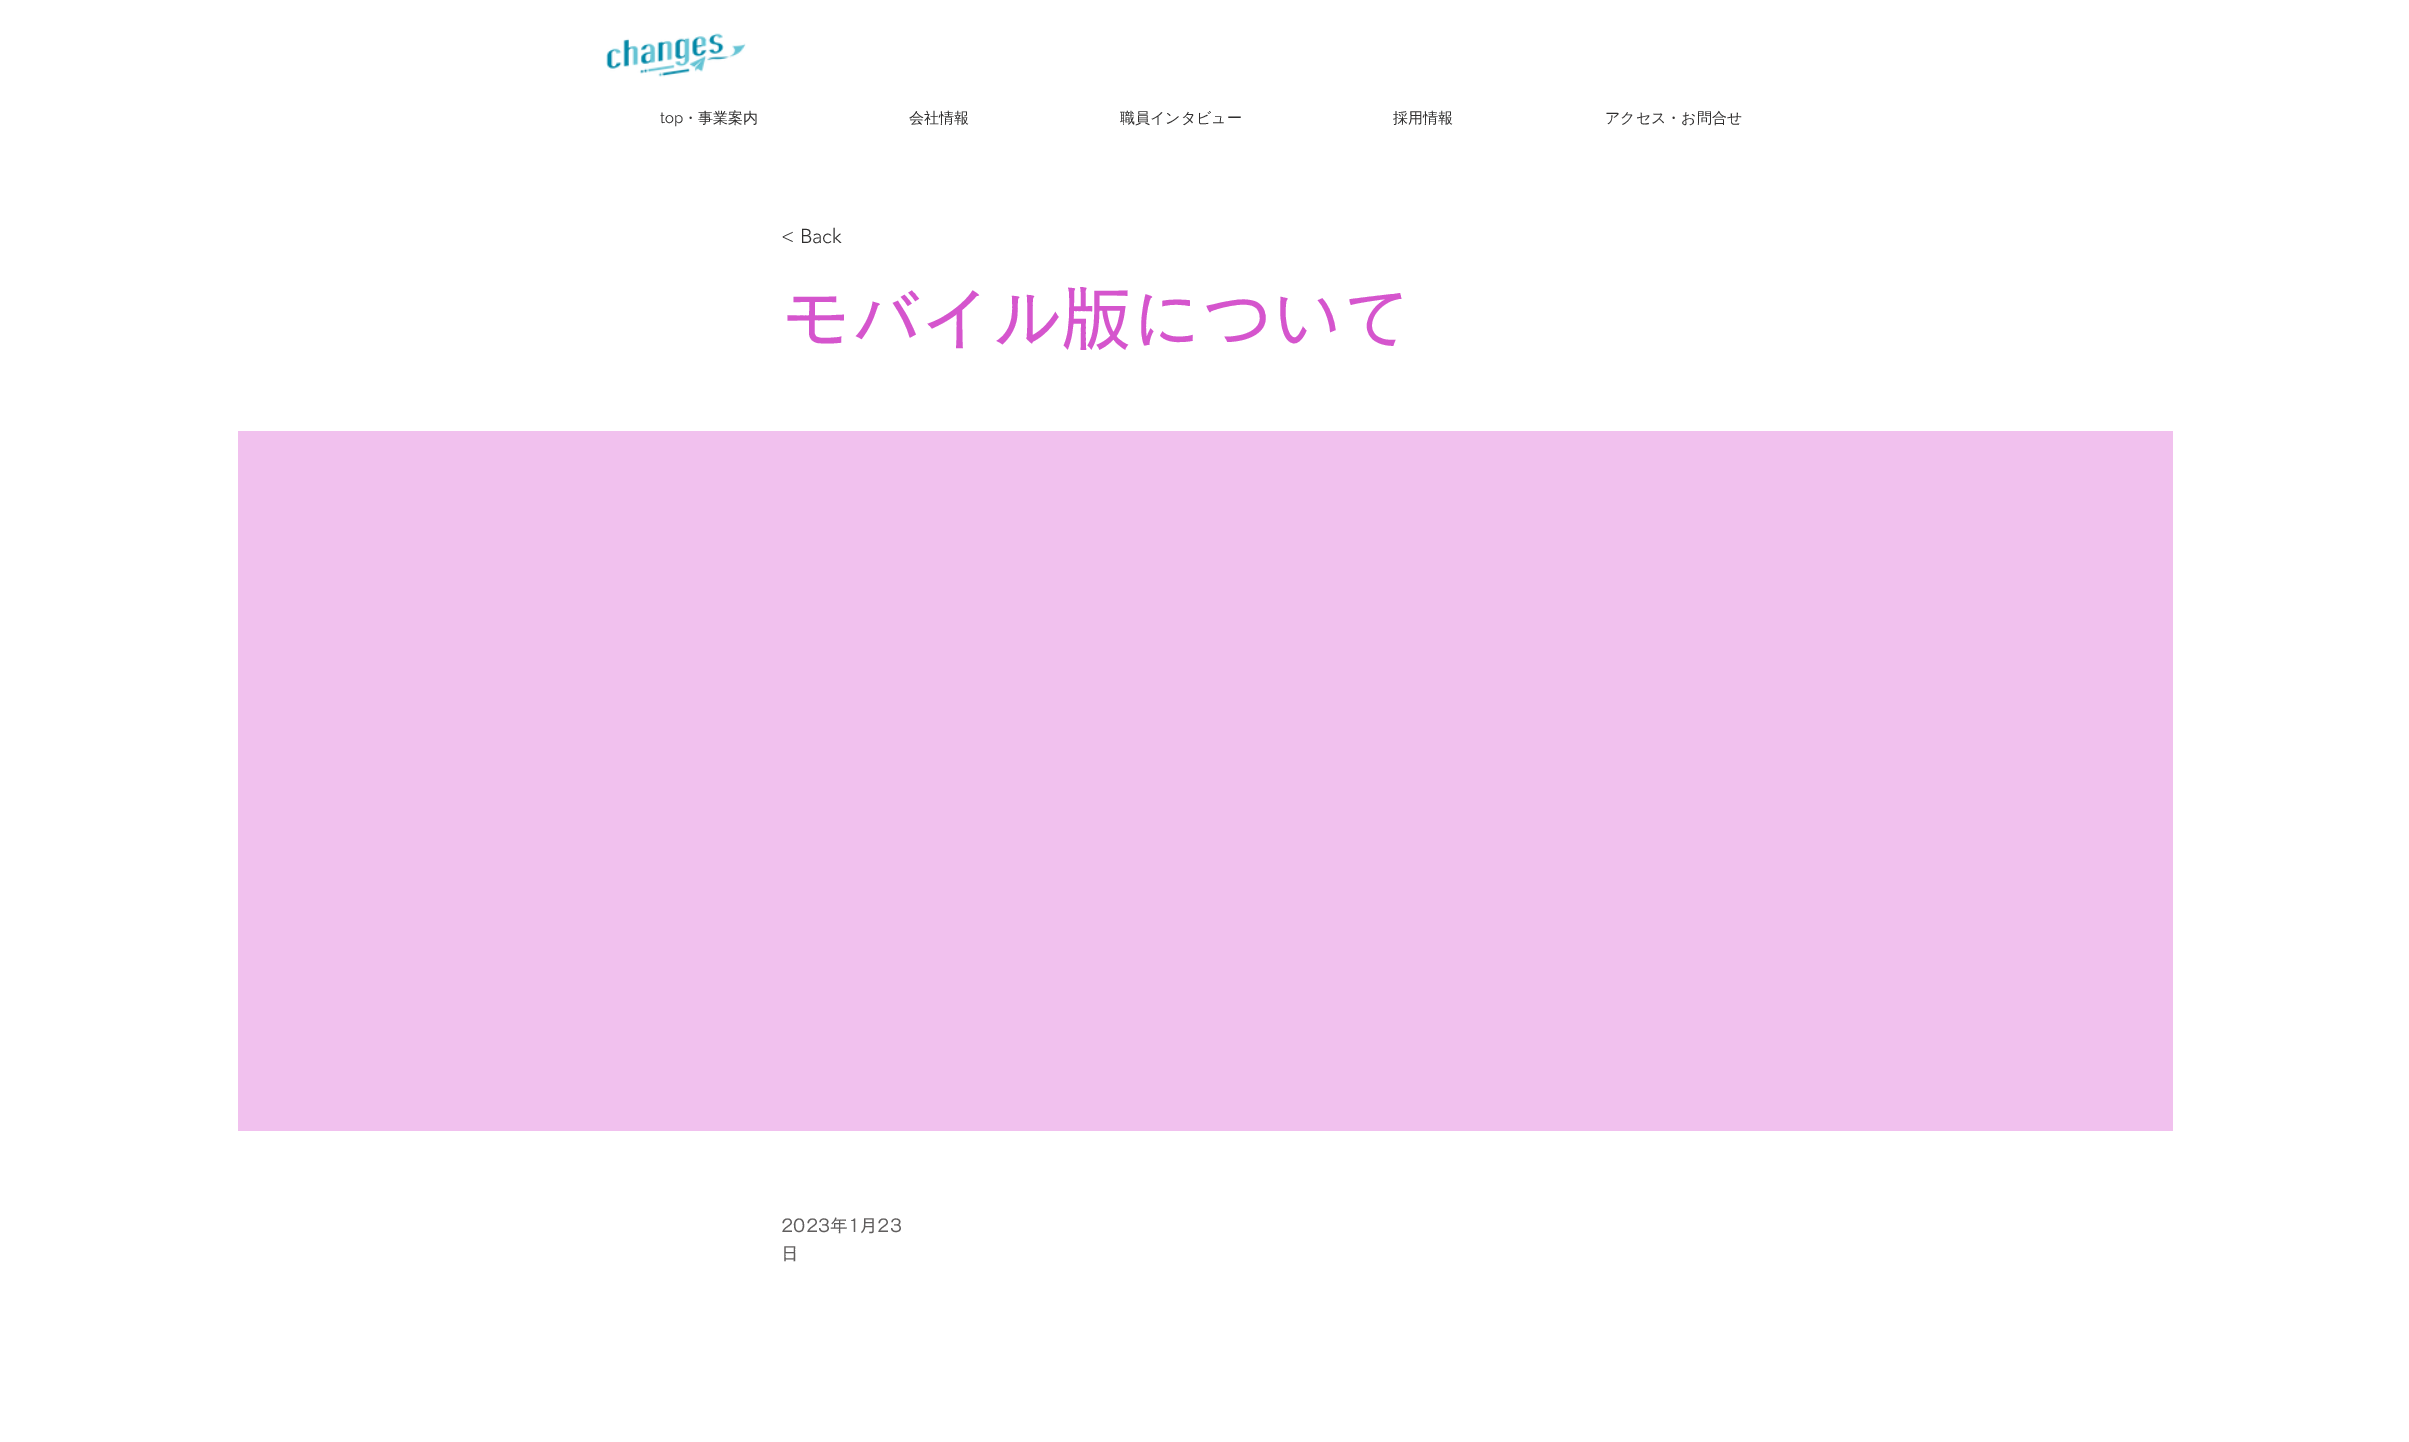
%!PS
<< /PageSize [2409 1442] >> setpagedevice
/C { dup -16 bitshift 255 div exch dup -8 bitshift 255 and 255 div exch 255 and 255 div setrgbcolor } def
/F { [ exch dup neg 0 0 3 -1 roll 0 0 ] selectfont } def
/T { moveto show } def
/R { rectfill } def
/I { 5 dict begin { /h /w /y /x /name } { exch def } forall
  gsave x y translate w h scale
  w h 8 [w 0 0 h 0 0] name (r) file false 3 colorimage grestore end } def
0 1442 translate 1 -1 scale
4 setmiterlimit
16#FFFFFF C
0 0 2409 1442 R
(1.rgb) 606 33 140 44 I
/Raleway-Regular 15 F
16#2F2E2E C
(top) 660 123 T
/WenQuanYiZenHei-Medium 15 F
(・事業案内) 683 123 T
(会社情報) 909 123 T
(職員インタビュー) 1120 123 T
(採用情報) 1393 123 T
(アクセス・お問合せ) 1605 123 T
/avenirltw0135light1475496-Light 20 F
(< Back) 781 243 T
/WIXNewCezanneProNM-Medium 70 F
16#D555CD C
(モバイル版について) 781 345 T
16#F1C1EE C
238 431 1935 700 R
/WIXNewCezanneProNM-Medium 17.5 F
16#605E5E C
(2023年1月23) 781 1232 T
(日) 781 1260 T
showpage
